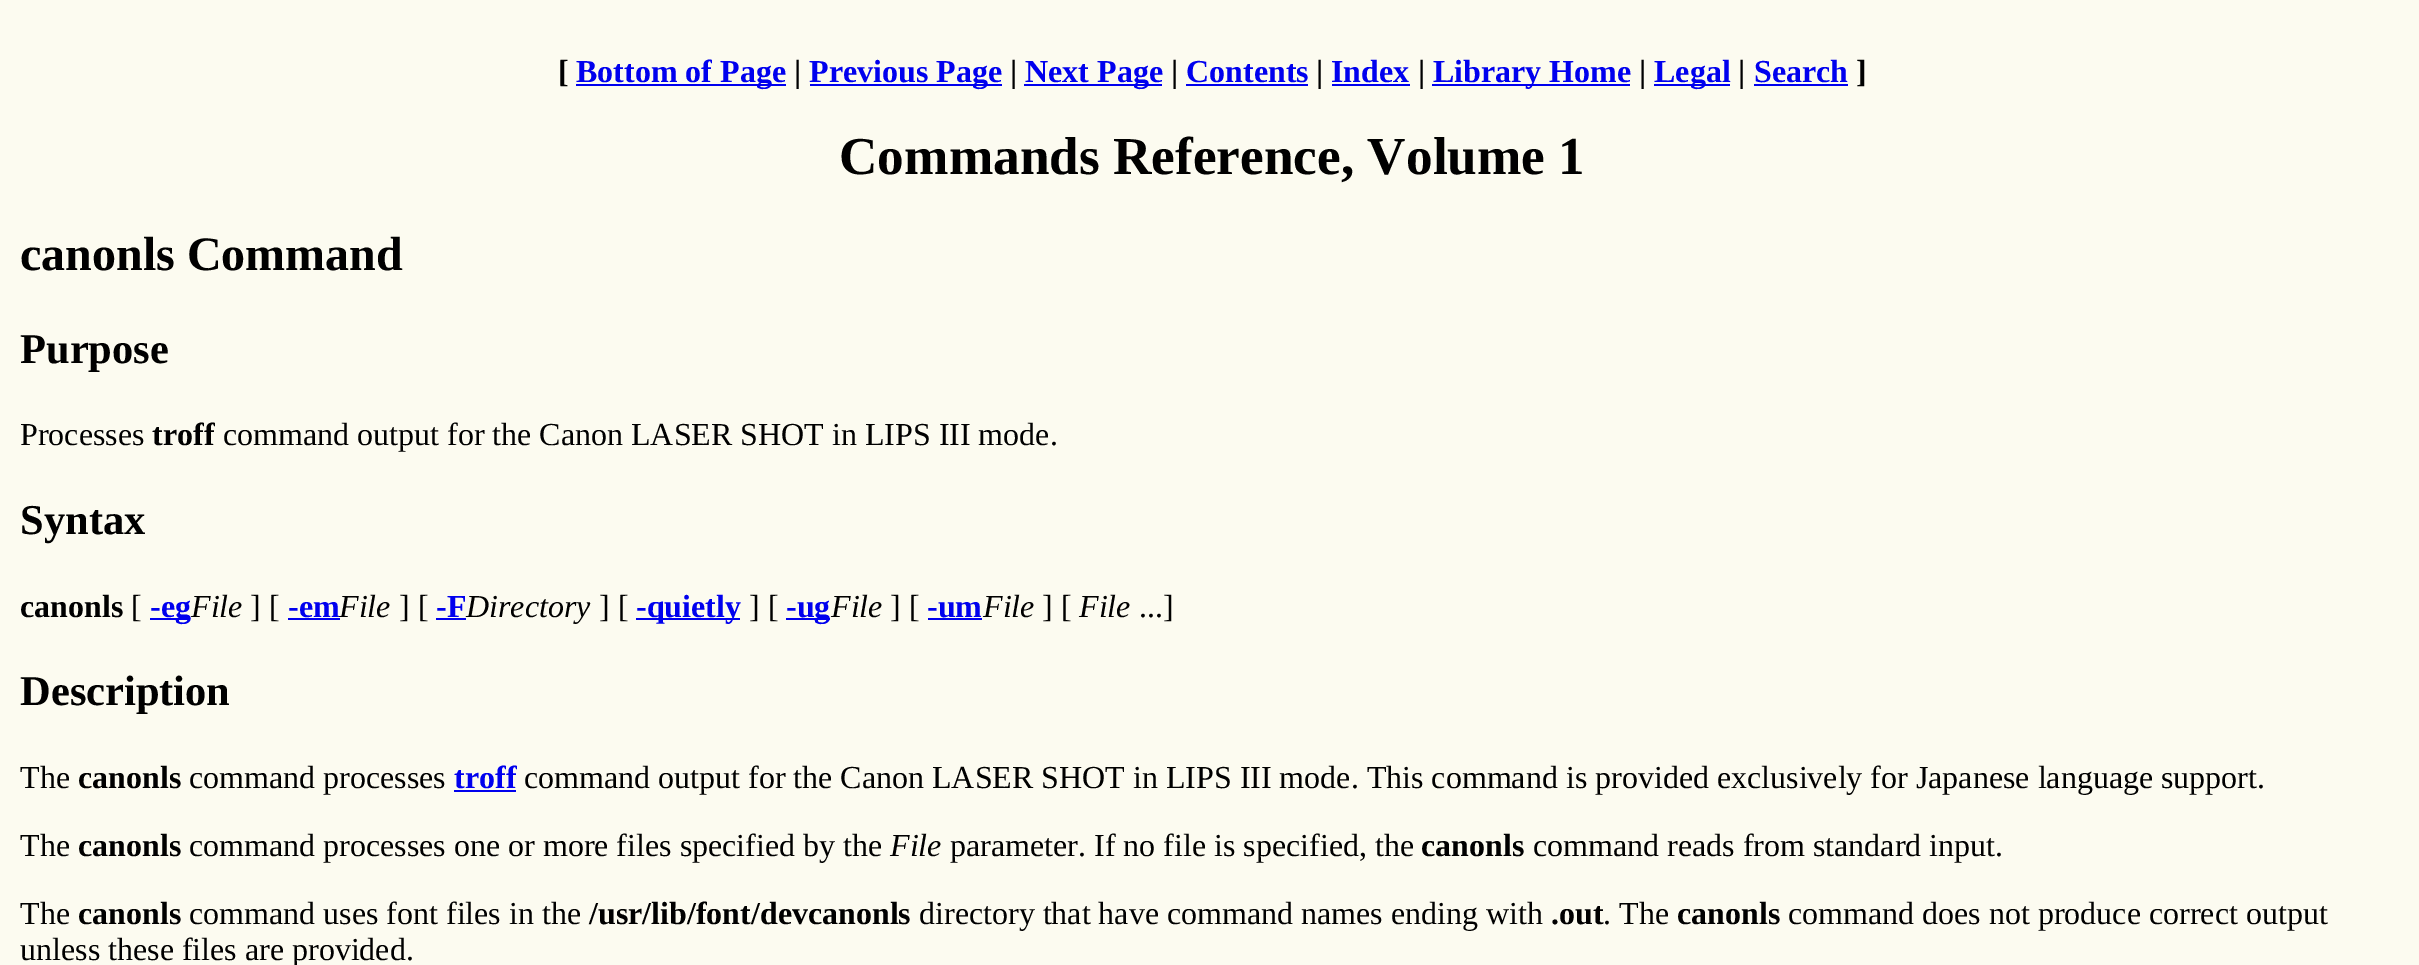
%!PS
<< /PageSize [2419 965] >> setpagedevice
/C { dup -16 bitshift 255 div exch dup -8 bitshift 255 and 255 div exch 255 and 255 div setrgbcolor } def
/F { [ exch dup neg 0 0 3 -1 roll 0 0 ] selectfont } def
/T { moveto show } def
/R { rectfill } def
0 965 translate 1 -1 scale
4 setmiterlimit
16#FCFBF0 C
0 0 2419 965 R
/LiberationSerif-Bold 32 F
16#000000 C
([) 558 82 T
16#0000EE C
576 84 210 2 R
(Bottom of Page) 576 82 T
16#000000 C
(|) 794 82 T
16#0000EE C
810 84 192 2 R
(Previous Page) 809 82 T
16#000000 C
(|) 1010 82 T
16#0000EE C
1024 84 138 2 R
(Next Page) 1025 82 T
16#000000 C
(|) 1171 82 T
16#0000EE C
(Contents) 1186 82 T
1186 84 122 2 R
16#000000 C
(|) 1316 82 T
16#0000EE C
(Index) 1331 82 T
1332 84 78 2 R
16#000000 C
(|) 1418 82 T
16#0000EE C
1432 84 198 2 R
(Library Home) 1433 82 T
16#000000 C
(|) 1639 82 T
16#0000EE C
1654 84 76 2 R
(Legal) 1654 82 T
16#000000 C
(|) 1738 82 T
16#0000EE C
(Search) 1754 82 T
1754 84 94 2 R
16#000000 C
(]) 1856 82 T
/LiberationSerif-Bold 53.3 F
(Commands Reference, Volume 1) 839 174 T
/LiberationSerif-Bold 48 F
(canonls Command) 20 270 T
/LiberationSerif-Bold 42.5 F
(Purpose) 20 363 T
/LiberationSerif-Regular 32 F
(Processes) 20 445 T
/LiberationSerif-Bold 32 F
(troff) 152 445 T
/LiberationSerif-Regular 32 F
(command output for the Canon LASER SHOT in LIPS III mode.) 223 445 T
/LiberationSerif-Bold 42.5 F
(Syntax) 20 534 T
/LiberationSerif-Bold 32 F
(canonls) 20 617 T
/LiberationSerif-Regular 32 F
([) 131 617 T
16#0000EE C
150 618 40 2 R
/LiberationSerif-Bold 32 F
(-eg) 150 617 T
/LiberationSerif-Italic 32 F
16#000000 C
(File) 191 617 T
/LiberationSerif-Regular 32 F
(] [) 250 617 T
/LiberationSerif-Bold 32 F
16#0000EE C
(-em) 288 617 T
288 618 52 2 R
/LiberationSerif-Italic 32 F
16#000000 C
(File) 339 617 T
/LiberationSerif-Regular 32 F
(] [) 399 617 T
/LiberationSerif-Bold 32 F
16#0000EE C
(-F) 436 617 T
436 618 30 2 R
/LiberationSerif-Italic 32 F
16#000000 C
(Directory) 466 617 T
/LiberationSerif-Regular 32 F
(] [) 599 617 T
16#0000EE C
636 618 104 2 R
/LiberationSerif-Bold 32 F
(-quietly) 636 617 T
/LiberationSerif-Regular 32 F
16#000000 C
(] [) 749 617 T
16#0000EE C
786 618 44 2 R
/LiberationSerif-Bold 32 F
(-ug) 786 617 T
/LiberationSerif-Italic 32 F
16#000000 C
(File) 831 617 T
/LiberationSerif-Regular 32 F
(] [) 890 617 T
/LiberationSerif-Bold 32 F
16#0000EE C
(-um) 927 617 T
928 618 54 2 R
/LiberationSerif-Italic 32 F
16#000000 C
(File) 983 617 T
/LiberationSerif-Regular 32 F
(] [) 1042 617 T
/LiberationSerif-Italic 32 F
(File) 1079 617 T
/LiberationSerif-Regular 32 F
(...]) 1139 617 T
/LiberationSerif-Bold 42.5 F
(Description) 20 705 T
/LiberationSerif-Regular 32 F
(The) 20 788 T
/LiberationSerif-Bold 32 F
(canonls) 78 788 T
/LiberationSerif-Regular 32 F
(command processes) 189 788 T
/LiberationSerif-Bold 32 F
16#0000EE C
(troff) 454 788 T
454 790 62 2 R
/LiberationSerif-Regular 32 F
16#000000 C
(command output for the Canon LASER SHOT in LIPS III mode. This command is provided exclusively for Japanese language support.) 524 788 T
(The) 20 856 T
/LiberationSerif-Bold 32 F
(canonls) 78 856 T
/LiberationSerif-Regular 32 F
(command processes one or more files specified by the) 189 856 T
/LiberationSerif-Italic 32 F
(File) 890 856 T
/LiberationSerif-Regular 32 F
(parameter. If no file is specified, the) 950 856 T
/LiberationSerif-Bold 32 F
(canonls) 1421 856 T
/LiberationSerif-Regular 32 F
(command reads from standard input.) 1533 856 T
(The) 20 924 T
/LiberationSerif-Bold 32 F
(canonls) 78 924 T
/LiberationSerif-Regular 32 F
(command uses font files in the) 189 924 T
/LiberationSerif-Bold 32 F
(/usr/lib/font/devcanonls) 589 924 T
/LiberationSerif-Regular 32 F
(directory that have command names ending with) 919 924 T
/LiberationSerif-Bold 32 F
(.out) 1551 924 T
/LiberationSerif-Regular 32 F
(. The) 1603 924 T
/LiberationSerif-Bold 32 F
(canonls) 1677 924 T
/LiberationSerif-Regular 32 F
(command does not produce correct output) 1788 924 T
(unless these files are provided.) 20 960 T
showpage
